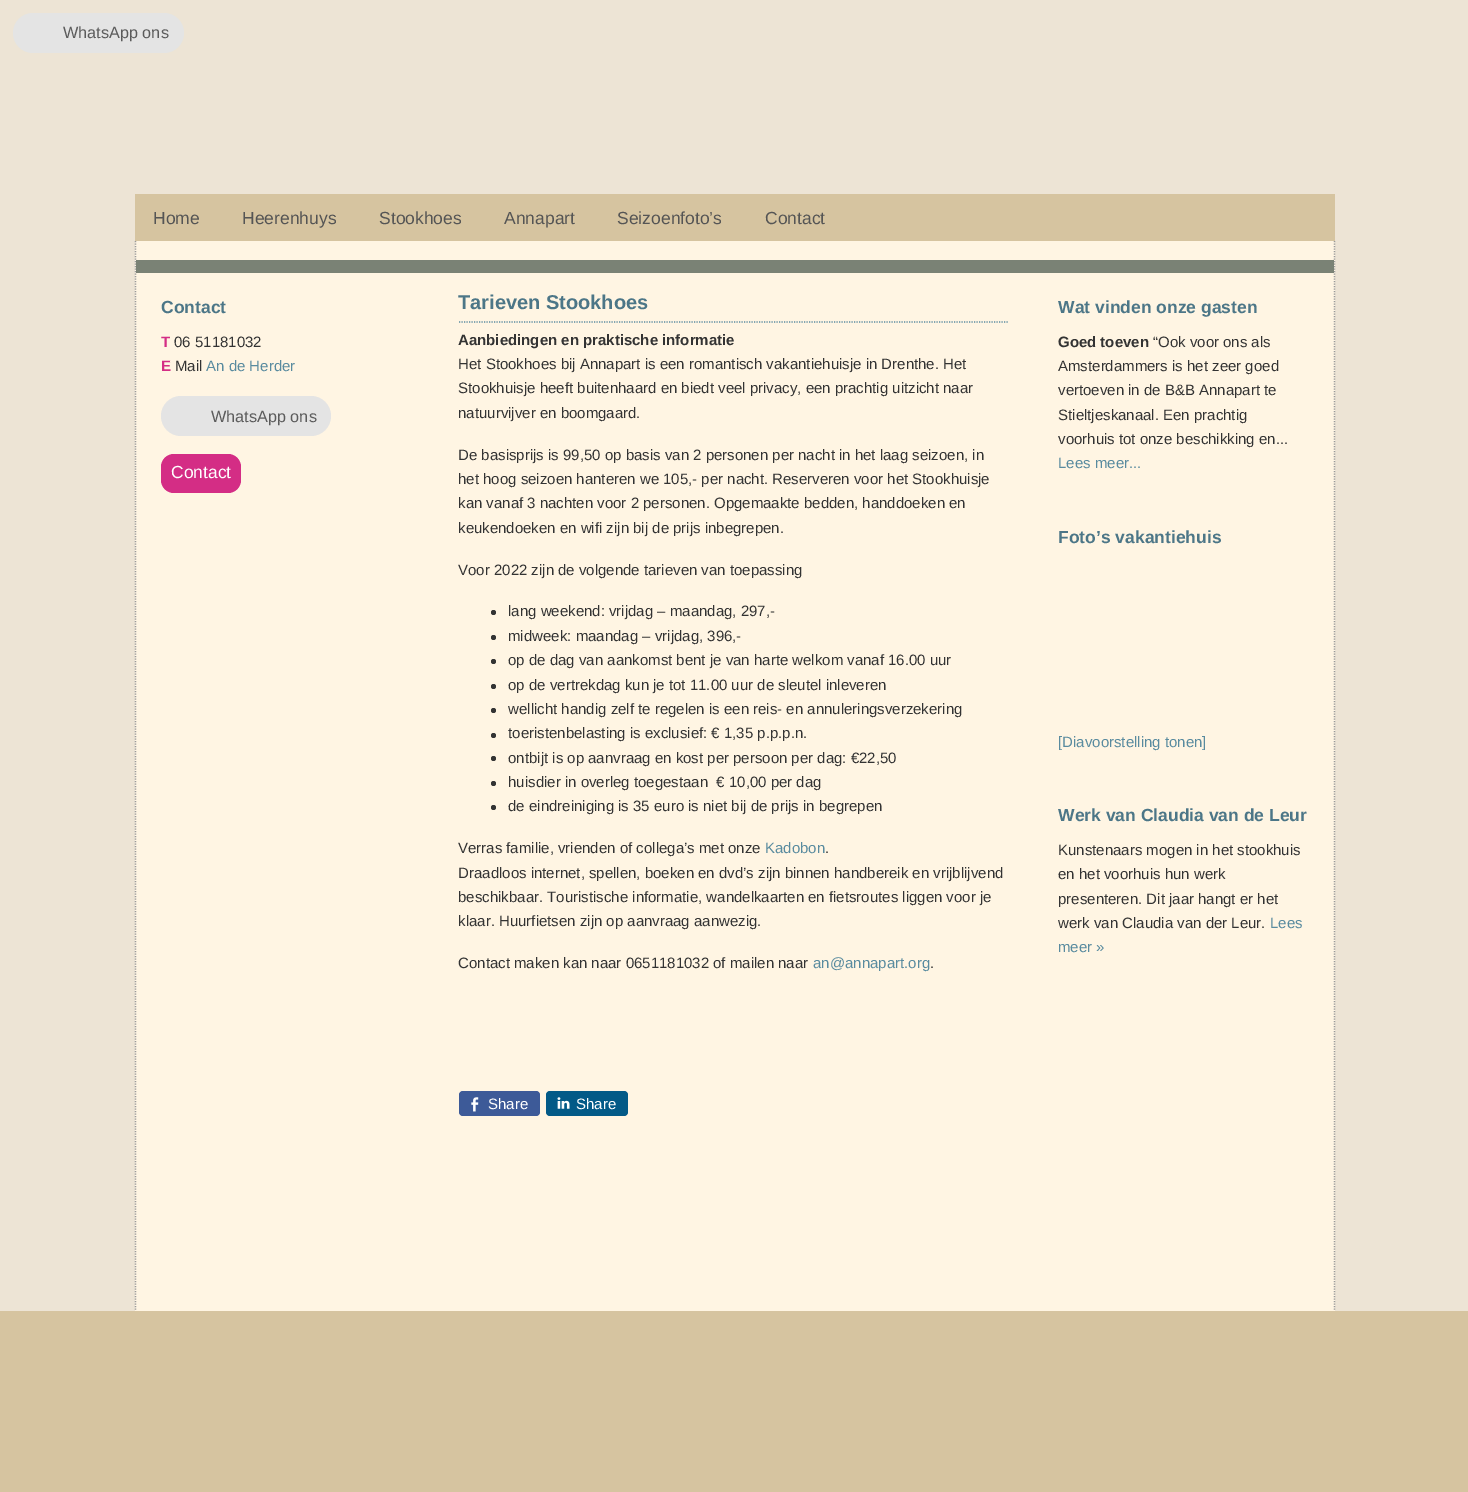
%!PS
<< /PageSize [1468 1492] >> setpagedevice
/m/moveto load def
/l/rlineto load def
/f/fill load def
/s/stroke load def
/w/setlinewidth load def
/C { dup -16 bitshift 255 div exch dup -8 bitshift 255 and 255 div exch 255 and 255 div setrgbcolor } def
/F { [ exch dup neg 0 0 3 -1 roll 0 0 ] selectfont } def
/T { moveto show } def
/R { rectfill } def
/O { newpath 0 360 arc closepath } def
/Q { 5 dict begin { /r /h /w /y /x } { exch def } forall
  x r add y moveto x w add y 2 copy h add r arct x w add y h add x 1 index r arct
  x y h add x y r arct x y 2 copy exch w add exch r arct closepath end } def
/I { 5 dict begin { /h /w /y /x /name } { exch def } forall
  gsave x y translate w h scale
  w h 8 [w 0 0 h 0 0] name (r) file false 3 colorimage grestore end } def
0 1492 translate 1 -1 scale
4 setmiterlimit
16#EDE4D5 C
0 0 1468 1492 R
16#E4E4E4 C
13 13 171 40 20 Q f
/LiberationSans-Regular 16.25 F
16#5B5B5B C
(WhatsApp ons) 63 38 T
16#D6C4A0 C
135 194 1200 47 R
/LiberationSans-Regular 17.5 F
16#555555 C
(Home) 153 224 T
(Heerenhuys) 242 224 T
(Stookhoes) 379 224 T
(Annapart) 504 224 T
(Seizoenfoto’s) 617 224 T
(Contact) 765 224 T
16#FFF5E3 C
135 241 1200 1070 R
16#999999 C
1.2 w
[1.25 1.25] 0 setdash
1334.5 241 m 0 1070 l s
135.5 241 m 0 1070 l s
16#7A8275 C
136 260 1198 13 R
/LiberationSans-Bold 17.5 F
16#4C7687 C
(Contact) 161 313 T
/LiberationSans-Bold 15 F
16#D42D85 C
(T) 161 347 T
/LiberationSans-Regular 15 F
16#333333 C
(06 51181032) 174 347 T
/LiberationSans-Bold 15 F
16#D42D85 C
(E) 161 371 T
/LiberationSans-Regular 15 F
16#333333 C
(Mail) 175 371 T
16#598B9F C
(An de Herder) 206 371 T
16#E4E4E4 C
161 396 170 40 20 Q f
/LiberationSans-Regular 16.25 F
16#5B5B5B C
(WhatsApp ons) 211 422 T
16#D42D85 C
161 454 80 39 13 Q f
/LiberationSans-Regular 17.5 F
16#FFFFFF C
(Contact) 171 478 T
16#5A8BA0 C
459 322 m 550 0 l s
/LiberationSans-Bold 20 F
16#4C7687 C
(Tarieven Stookhoes) 458 309 T
/LiberationSans-Bold 15 F
16#333333 C
(Aanbiedingen en praktische informatie) 458 345 T
/LiberationSans-Regular 15 F
(Het Stookhoes bij Annapart is een romantisch vakantiehuisje in Drenthe. Het) 458 369 T
(Stookhuisje heeft buitenhaard en biedt veel privacy, een prachtig uitzicht naar) 458 393 T
(natuurvijver en boomgaard.) 458 418 T
(De basisprijs is 99,50 op basis van 2 personen per nacht in het laag seizoen, in) 458 460 T
(het hoog seizoen hanteren we 105,- per nacht. Reserveren voor het Stookhuisje) 458 484 T
(kan vanaf 3 nachten voor 2 personen. Opgemaakte bedden, handdoeken en) 458 508 T
(keukendoeken en wifi zijn bij de prijs inbegrepen.) 458 533 T
(Voor 2022 zijn de volgende tarieven van toepassing) 458 575 T
493.5 612.5 2.5 O f
(lang weekend: vrijdag – maandag, 297,-) 508 616 T
493.5 637.5 2.5 O f
(midweek: maandag – vrijdag, 396,-) 508 641 T
493.5 661.5 2.5 O f
(op de dag van aankomst bent je van harte welkom vanaf 16.00 uur) 508 665 T
493.5 686.5 2.5 O f
(op de vertrekdag kun je tot 11.00 uur de sleutel inleveren) 508 690 T
493.5 710.5 2.5 O f
(wellicht handig zelf te regelen is een reis- en annuleringsverzekering) 508 714 T
493.5 735.5 2.5 O f
(toeristenbelasting is exclusief: € 1,35 p.p.p.n.) 508 738 T
493.5 758.5 2.5 O f
(ontbijt is op aanvraag en kost per persoon per dag: €22,50) 508 763 T
493.5 783.5 2.5 O f
(huisdier in overleg toegestaan  € 10,00 per dag) 508 787 T
493.5 807.5 2.5 O f
(de eindreiniging is 35 euro is niet bij de prijs in begrepen) 508 811 T
(Verras familie, vrienden of collega’s met onze) 458 853 T
16#598B9F C
(Kadobon) 765 853 T
16#333333 C
(.) 825 853 T
(Draadloos internet, spellen, boeken en dvd’s zijn binnen handbereik en vrijblijvend) 458 878 T
(beschikbaar. Touristische informatie, wandelkaarten en fietsroutes liggen voor je) 458 902 T
(klaar. Huurfietsen zijn op aanvraag aanwezig.) 458 926 T
(Contact maken kan naar 0651181032 of mailen naar) 458 968 T
16#598B9F C
(an@annapart.org) 813 968 T
16#333333 C
(.) 930 968 T
16#3D5A98 C
459 1091 81 25 4 Q f
(1.rgb) 471 1097 8 15 I
16#FFFFFF C
(Share) 488 1109 T
16#035A87 C
546 1091 82 25 4 Q f
(2.rgb) 557 1097 13 12 I
16#FFFFFF C
(Share) 576 1109 T
/LiberationSans-Bold 17.5 F
16#4C7687 C
(Wat vinden onze gasten) 1058 313 T
/LiberationSans-Bold 15 F
16#333333 C
(Goed toeven) 1058 347 T
/LiberationSans-Regular 15 F
(“Ook voor ons als) 1153 347 T
(Amsterdammers is het zeer goed) 1058 371 T
(vertoeven in de B&B Annapart te) 1058 395 T
(Stieltjeskanaal. Een prachtig) 1058 420 T
(voorhuis tot onze beschikking en...) 1058 444 T
16#598B9F C
(Lees meer...) 1058 468 T
/LiberationSans-Bold 17.5 F
16#4C7687 C
(Foto’s vakantiehuis) 1058 543 T
/LiberationSans-Regular 15 F
16#598B9F C
([Diavoorstelling tonen]) 1058 747 T
/LiberationSans-Bold 17.5 F
16#4C7687 C
(Werk van Claudia van de Leur) 1058 821 T
/LiberationSans-Regular 15 F
16#333333 C
(Kunstenaars mogen in het stookhuis) 1058 855 T
(en het voorhuis hun werk) 1058 879 T
(presenteren. Dit jaar hangt er het) 1058 904 T
(werk van Claudia van der Leur.) 1058 928 T
16#598B9F C
(Lees) 1270 928 T
(meer ») 1058 952 T
16#D6C4A0 C
0 1311 1468 181 R
showpage
